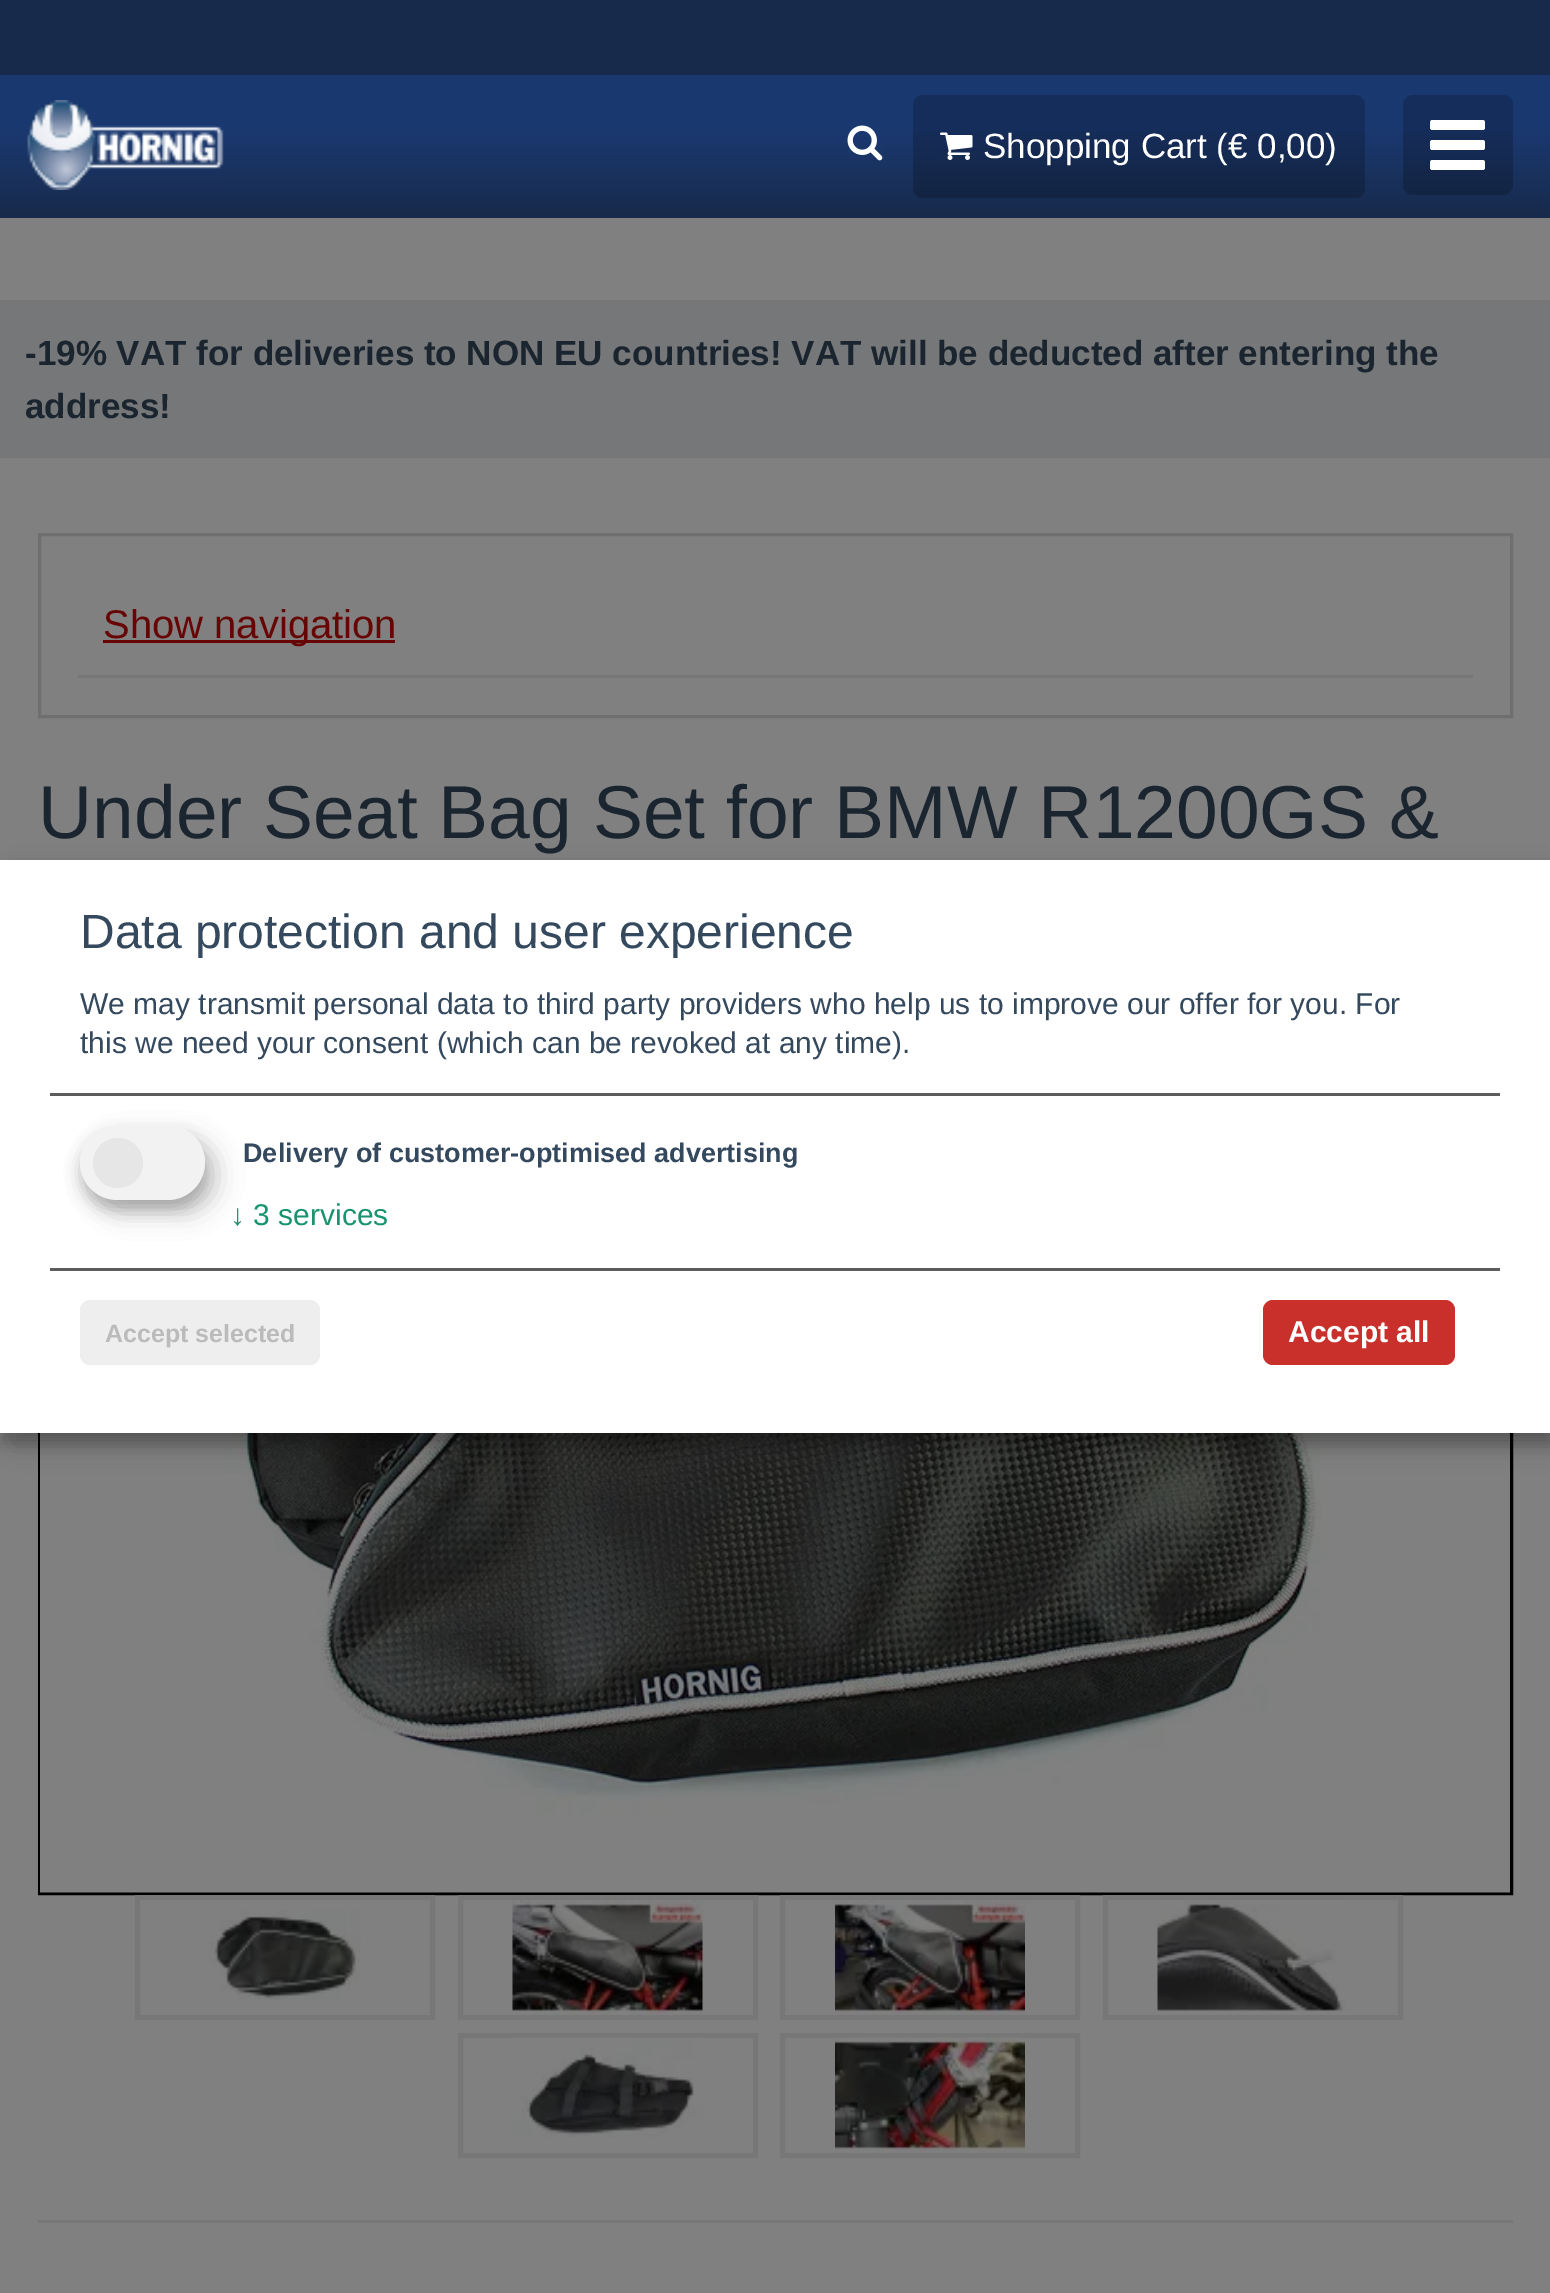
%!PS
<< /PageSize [1550 2293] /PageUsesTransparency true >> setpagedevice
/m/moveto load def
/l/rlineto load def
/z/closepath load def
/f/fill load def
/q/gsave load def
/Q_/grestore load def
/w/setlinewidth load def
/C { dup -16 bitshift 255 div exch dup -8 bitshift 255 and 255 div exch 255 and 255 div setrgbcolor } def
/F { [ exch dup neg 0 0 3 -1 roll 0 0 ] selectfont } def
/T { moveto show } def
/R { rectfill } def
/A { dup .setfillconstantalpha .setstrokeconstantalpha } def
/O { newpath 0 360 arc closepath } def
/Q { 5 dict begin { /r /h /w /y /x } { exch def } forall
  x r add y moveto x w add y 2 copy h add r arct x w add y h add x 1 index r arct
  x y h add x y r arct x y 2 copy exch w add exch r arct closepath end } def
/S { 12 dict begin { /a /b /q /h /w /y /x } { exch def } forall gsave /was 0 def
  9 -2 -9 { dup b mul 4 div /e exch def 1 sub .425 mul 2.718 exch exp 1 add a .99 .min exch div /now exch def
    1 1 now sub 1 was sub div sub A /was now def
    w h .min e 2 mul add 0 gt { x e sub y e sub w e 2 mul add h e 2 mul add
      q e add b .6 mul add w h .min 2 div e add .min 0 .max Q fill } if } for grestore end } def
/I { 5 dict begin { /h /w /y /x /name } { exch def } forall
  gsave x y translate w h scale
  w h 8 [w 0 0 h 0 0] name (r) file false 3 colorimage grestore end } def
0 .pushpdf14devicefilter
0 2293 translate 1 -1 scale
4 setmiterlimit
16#808080 C
0 0 1550 2293 R
q 0 75 m 1550 0 l 0 143 l -1550 0 l z clip newpath
<< /ShadingType 2 /ColorSpace /DeviceRGB /Coords [775 0 775 218] /Extend [true true] /Function << /FunctionType 3 /Domain [0 1] /Functions [<< /FunctionType 2 /Domain [0 1] /C0 [.102 .22 .439] /C1 [.102 .22 .439] /N 1 >> << /FunctionType 2 /Domain [0 1] /C0 [.102 .22 .439] /C1 [.094 .165 .294] /N 1 >>] /Bounds [.6] /Encode [0 1 0 1] >> >> shfill Q_
16#182A4B C
0 0 1550 75 R
(1.rgb) 27 100 197 90 I
(2.rgb) 847 125 36 36 I
0.2 A
16#000000 C
913 95 452 103 10 Q f
1 A
(3.rgb) 940 132 33 28 I
/LiberationSans-Regular 35 F
16#FFFFFF C
(Shopping Cart \(€ 0,00\)) 983 158 T
0.2 A
16#000000 C
1403 95 110 100 10 Q f
1 A
16#FFFFFF C
1430 120 55 10 2.5 Q f
1430 140 55 10 2.5 Q f
1430 160 55 10 2.5 Q f
16#767778 C
0 303 1550 155 R
16#777777 C
0 300 1550 3 R
/LiberationSans-Bold 35 F
16#1A252F C
(-19% VAT for deliveries to NON EU countries! VAT will be deducted after entering the) 25 365 T
(address!) 25 418 T
16#6F6F6F C
3 w
39.5 534.5 1472 182 rectstroke
16#777777 C
78 675 1395 3 R
16#670404 C
103 640 292 3 R
/LiberationSans-Regular 40 F
(Show navigation) 103 638 T
/LiberationSans-Regular 75 F
16#1A252F C
(Under Seat Bag Set for BMW R1200GS &) 38 838 T
16#000000 C
39.5 1081.5 1472 812 rectstroke
(4.rgb) 40 1433 1470 460 I
16#777777 C
5 w
137.5 1897.5 295 120 rectstroke
(5.rgb) 210 1910 151 90 I
460.5 1897.5 295 120 rectstroke
(6.rgb) 512 1900 191 115 I
782.5 1897.5 295 120 rectstroke
(7.rgb) 835 1900 190 115 I
1105.5 1897.5 295 120 rectstroke
(8.rgb) 1157 1900 188 111 I
460.5 2035.5 295 120 rectstroke
(9.rgb) 512 2037 191 100 I
782.5 2035.5 295 120 rectstroke
(10.rgb) 835 2037 190 116 I
38 2220 1475 3 R
16#000000 C
13 873 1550 572 0 12.5 .19 S
0 870 1550 573 0 7.5 .2 S
16#FFFFFF C
0 860 1550 573 R
16#5C5C5C C
50 1093 1450 3 R
/LiberationSans-Regular 48 F
16#34495E C
(Data protection and user experience) 80 948 T
/LiberationSans-Regular 30 F
(We may transmit personal data to third party providers who help us to improve our offer for you. For) 80 1014 T
(this we need your consent \(which can be revoked at any time\).) 80 1053 T
16#000000 C
93 1138 125 75 37.5 12.5 .19 S
80 1135 125 75 37.5 7.5 .2 S
16#F2F2F2 C
80 1125 125 75 37.5 Q f
16#E6E6E6 C
118 1163 25 O f
/LiberationSans-Bold 27 F
16#34495E C
(Delivery of customer-optimised advertising) 243 1162 T
/LiberationSans-Regular 30 F
16#1A936F C
(↓ 3 services) 230 1225 T
16#5C5C5C C
50 1268 1450 3 R
16#EEEEEE C
80 1300 240 65 10 Q f
/LiberationSans-Bold 25 F
16#BBBBBB C
(Accept selected) 105 1342 T
16#C9302C C
1263 1300 192 65 10 Q f
/LiberationSans-Bold 30 F
16#FFFFFF C
(Accept all) 1288 1342 T
.poppdf14devicefilter showpage
